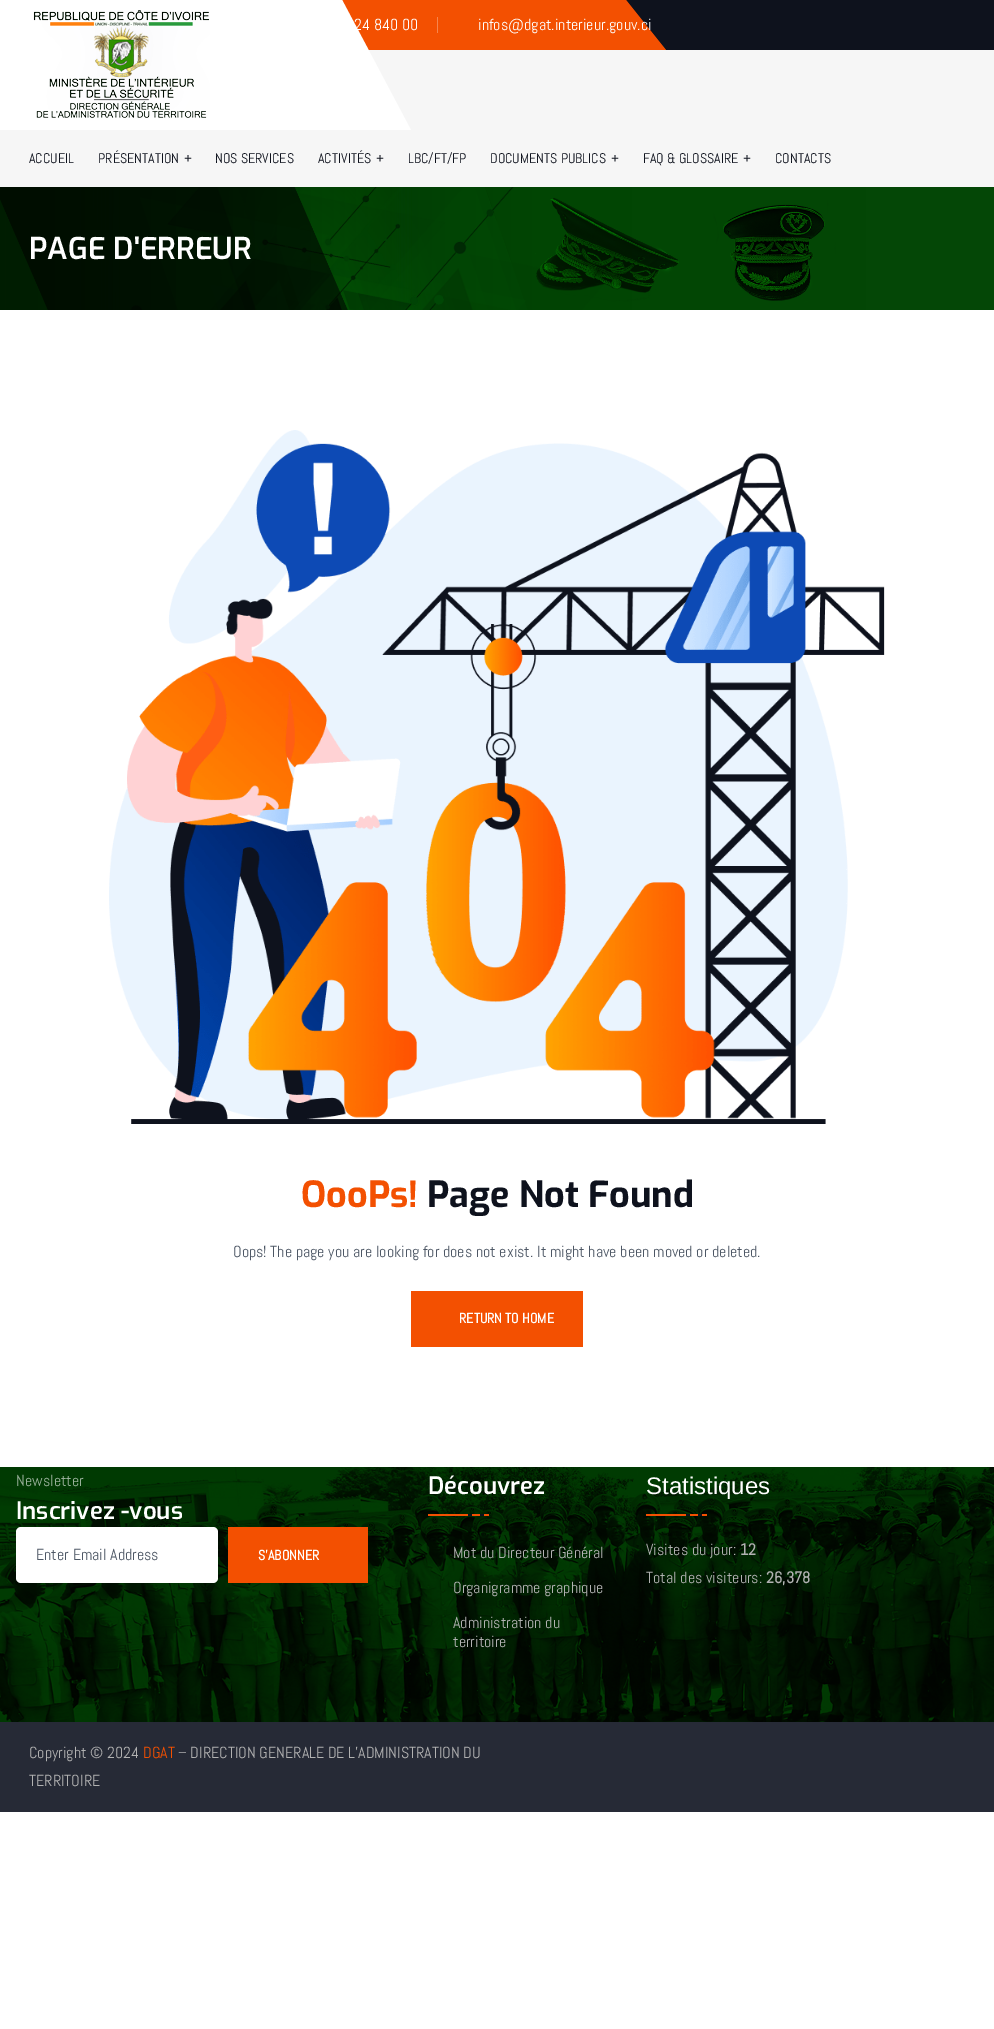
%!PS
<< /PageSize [994 2029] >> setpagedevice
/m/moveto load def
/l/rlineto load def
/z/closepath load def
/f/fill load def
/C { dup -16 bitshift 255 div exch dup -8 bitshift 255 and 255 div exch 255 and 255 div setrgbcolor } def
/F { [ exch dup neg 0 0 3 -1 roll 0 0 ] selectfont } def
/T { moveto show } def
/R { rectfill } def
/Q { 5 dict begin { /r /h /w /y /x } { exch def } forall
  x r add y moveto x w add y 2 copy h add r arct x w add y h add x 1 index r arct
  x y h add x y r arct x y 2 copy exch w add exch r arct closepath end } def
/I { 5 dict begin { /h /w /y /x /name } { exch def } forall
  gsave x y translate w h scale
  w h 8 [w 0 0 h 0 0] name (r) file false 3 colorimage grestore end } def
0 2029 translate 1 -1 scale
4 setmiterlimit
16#FFFFFF C
0 0 994 2029 R
16#0E121D C
626 0 368 50 R
16#F35001 C
0 0 m 0 50 l 666 0 l -40 -50 l z f
/Abel-Regular 16 F
16#FFFFFF C
(24 840 00) 354 30 T
16#F7854D C
437 17 1 16 R
16#FFFFFF C
(infos@dgat.interieur.gouv.ci) 478 30 T
16#F6F6F6 C
0 50 994 137 R
16#FFFFFF C
-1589 -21 m 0 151 l 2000 0 l -80 -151 l z f
(1.rgb) 33 10 177 108 I
/Abel-Regular 14 F
16#0E121D C
(ACCUEIL) 29 163 T
(PRÉSENTATION) 98 163 T
/LiberationSerif-Bold 14 F
(+) 184 163 T
/Abel-Regular 14 F
(NOS SERVICES) 215 163 T
(ACTIVITÉS) 318 163 T
/LiberationSerif-Bold 14 F
(+) 376 163 T
/Abel-Regular 14 F
(LBC/FT/FP) 408 163 T
(DOCUMENTS PUBLICS) 490 163 T
/LiberationSerif-Bold 14 F
(+) 611 163 T
/Abel-Regular 14 F
(FAQ & GLOSSAIRE) 643 163 T
/LiberationSerif-Bold 14 F
(+) 743 163 T
/Abel-Regular 14 F
(CONTACTS) 775 163 T
(2.rgb) 0 187 994 123 I
/Exo-SemiBold 30 F
16#FFFFFF C
(PAGE D'ERREUR) 29 259 T
(3.rgb) 109 430 776 694 I
/Exo-Bold 36 F
16#F35001 C
(OooPs!) 301 1207 T
16#0E121D C
(Page Not Found) 427 1207 T
/Abel-Regular 16 F
16#4D5765 C
(Oops! The page you are looking for does not exist. It might have been moved or deleted.) 233 1257 T
16#F35001 C
411 1291 172 56 R
/Abel-Bold 14 F
16#FFFFFF C
(RETURN TO HOME) 459 1323 T
(4.rgb) 0 1467 994 255 I
/Abel-Regular 16 F
16#99B09A C
(Newsletter) 16 1486 T
/Exo-SemiBold 24 F
16#FFFFFF C
(Inscrivez -vous) 16 1519 T
16 1527 202 56 5 Q f
/Abel-Regular 16 F
16#4D5765 C
(Enter Email Address) 36 1560 T
16#F35001 C
228 1527 140 56 R
/Abel-Bold 14 F
16#FFFFFF C
(S'ABONNER) 258 1560 T
/Exo-SemiBold 24 F
(Découvrez) 428 1494 T
16#F35001 C
428 1514 61 2 R
16#0E121D C
480 1514 4 2 R
468 1514 4 2 R
/Abel-Regular 16 F
16#B2B2B2 C
(Mot du Directeur Général) 453 1558 T
(Organigramme graphique) 453 1593 T
(Administration du) 453 1628 T
(territoire) 453 1647 T
/LiberationSans-Regular 24 F
16#FFFFFF C
(Statistiques) 646 1494 T
16#F35001 C
646 1514 61 2 R
16#0E121D C
698 1514 4 2 R
686 1514 4 2 R
/Abel-Regular 16 F
16#B2B2B2 C
(Visites du jour:) 646 1555 T
/Abel-Bold 16 F
(12) 740 1555 T
/Abel-Regular 16 F
(Total des visiteurs:) 646 1583 T
/Abel-Bold 16 F
(26,378) 766 1583 T
16#262A36 C
0 1722 994 90 R
/Abel-Regular 16 F
16#B2B2B2 C
(Copyright © 2024) 29 1758 T
16#F35001 C
(DGAT) 143 1758 T
16#B2B2B2 C
(– DIRECTION GENERALE DE L’ADMINISTRATION DU) 178 1758 T
(TERRITOIRE) 29 1786 T
showpage
